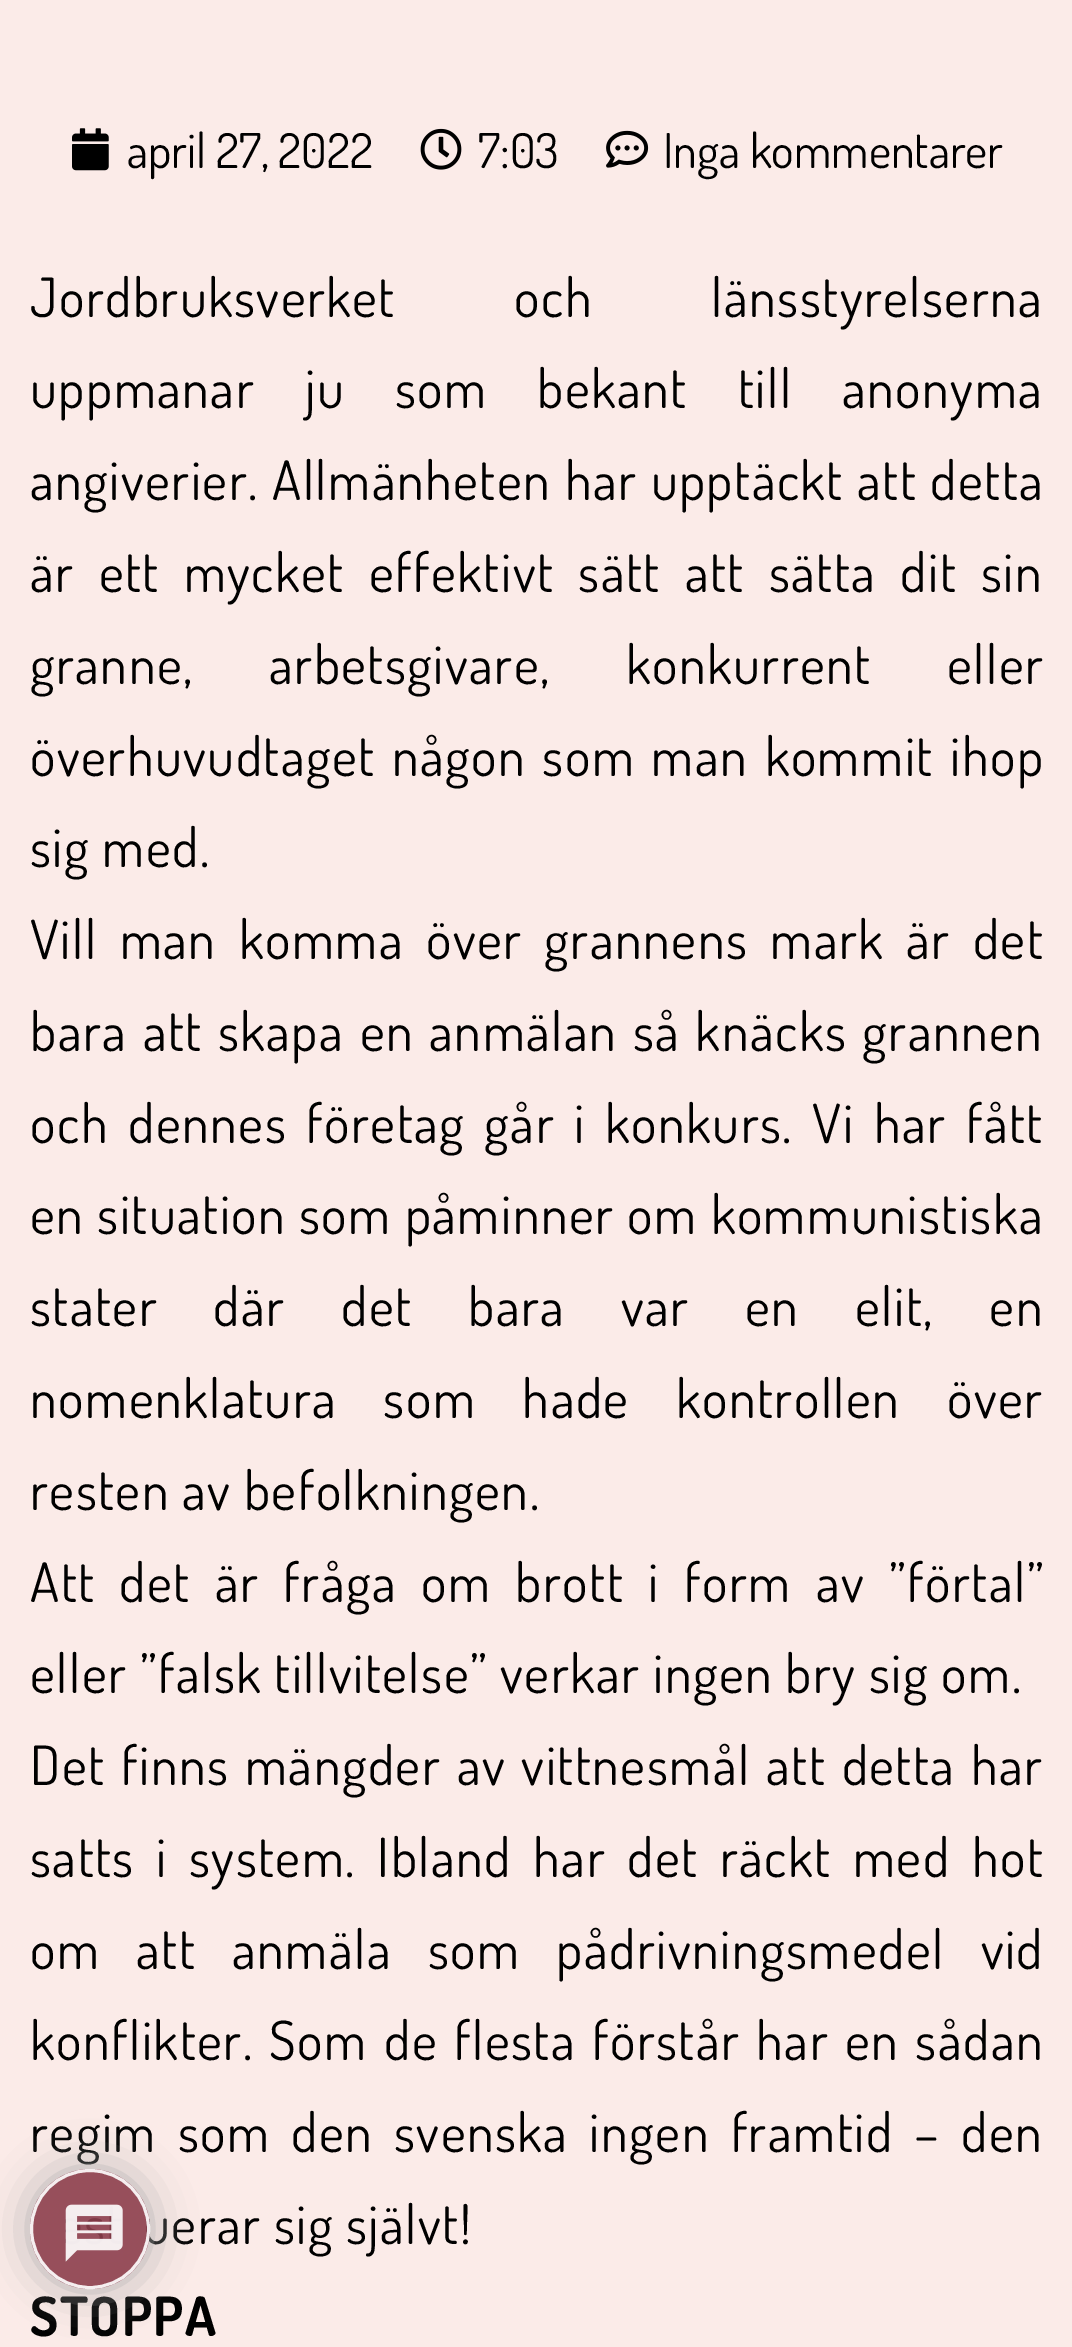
%!PS
<< /PageSize [1072 2347] /PageUsesTransparency true >> setpagedevice
/m/moveto load def
/l/rlineto load def
/c/rcurveto load def
/z/closepath load def
/f/fill load def
/s/stroke load def
/q/gsave load def
/Q_/grestore load def
/w/setlinewidth load def
/C { dup -16 bitshift 255 div exch dup -8 bitshift 255 and 255 div exch 255 and 255 div setrgbcolor } def
/F { [ exch dup neg 0 0 3 -1 roll 0 0 ] selectfont } def
/T { moveto show } def
/R { rectfill } def
/A { dup .setfillconstantalpha .setstrokeconstantalpha } def
/O { newpath 0 360 arc closepath } def
/Q { 5 dict begin { /r /h /w /y /x } { exch def } forall
  x r add y moveto x w add y 2 copy h add r arct x w add y h add x 1 index r arct
  x y h add x y r arct x y 2 copy exch w add exch r arct closepath end } def
/S { 12 dict begin { /a /b /q /h /w /y /x } { exch def } forall gsave /was 0 def
  9 -2 -9 { dup b mul 4 div /e exch def 1 sub .425 mul 2.718 exch exp 1 add a .99 .min exch div /now exch def
    1 1 now sub 1 was sub div sub A /was now def
    w h .min e 2 mul add 0 gt { x e sub y e sub w e 2 mul add h e 2 mul add
      q e add b .6 mul add w h .min 2 div e add .min 0 .max Q fill } if } for grestore end } def
/I { 5 dict begin { /h /w /y /x /name } { exch def } forall
  gsave x y translate w h scale
  w h 8 [w 0 0 h 0 0] name (r) file false 3 colorimage grestore end } def
0 .pushpdf14devicefilter
0 2347 translate 1 -1 scale
4 setmiterlimit
16#FBEBE8 C
0 0 1072 2347 R
(1.rgb) 72 128 37 43 I
/Dosis-Regular 48 F
16#000000 C
(april 27, 2022) 127 168 T
(2.rgb) 420 128 42 42 I
(7:03) 478 168 T
(3.rgb) 606 130 43 38 I
(Inga kommentarer) 663 168 T
/Dosis-Regular 54 F
30 317 m 106 0 32 1.5 0 (Jordbruksverket och länsstyrelserna) awidthshow
30 408 m 37.5 0 32 1.5 0 (uppmanar ju som bekant till anonyma) awidthshow
30 500 m 1 0 32 1.5 0 (angiverier. Allmänheten har upptäckt att detta) awidthshow
30 592 m 11.75 0 32 1.5 0 (är ett mycket effektivt sätt att sätta dit sin) awidthshow
30 684 m 63 0 32 1.5 0 (granne, arbetsgivare, konkurrent eller) awidthshow
30 776 m 4 0 32 1.5 0 (överhuvudtaget någon som man kommit ihop) awidthshow
30 867 m 1.5 0 (sig med.) ashow
30 959 m 9.75 0 32 1.5 0 (Vill man komma över grannens mark är det) awidthshow
30 1051 m 3 0 32 1.5 0 (bara att skapa en anmälan så knäcks grannen) awidthshow
30 1143 m 7 0 32 1.5 0 (och dennes företag går i konkurs. Vi har fått) awidthshow
30 1234 m .5 0 32 1.5 0 (en situation som påminner om kommunistiska) awidthshow
30 1326 m 43.25 0 32 1.5 0 (stater där det bara var en elit, en) awidthshow
30 1418 m 34 0 32 1.5 0 (nomenklatura som hade kontrollen över) awidthshow
30 1510 m 1.5 0 (resten av befolkningen.) ashow
30 1602 m 11.75 0 32 1.5 0 (Att det är fråga om brott i form av ”förtal”) awidthshow
30 1693 m 1.5 0 (eller ”falsk tillvitelse” verkar ingen bry sig om.) ashow
30 1785 m 3.25 0 32 1.5 0 (Det finns mängder av vittnesmål att detta har) awidthshow
30 1877 m 9 0 32 1.5 0 (satts i system. Ibland har det räckt med hot) awidthshow
30 1969 m 23.5 0 32 1.5 0 (om att anmäla som pådrivningsmedel vid) awidthshow
30 2060 m 3.75 0 32 1.5 0 (konflikter. Som de flesta förstår har en sådan) awidthshow
30 2152 m 8.5 0 32 1.5 0 (regim som den svenska ingen framtid – den) awidthshow
143 2244 m 1.5 0 (uerar sig självt!) ashow
/Dosis-Bold 54 F
30 2336 m 1.5 0 (STOPPA) ashow
q
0 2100 m 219 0 l 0 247 l -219 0 l z 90 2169 m 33 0 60 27 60 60 c 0 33 -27 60 -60 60 c -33 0 -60 -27 -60 -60 c 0 -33 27 -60 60 -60 c z eoclip newpath
16#AAAAAA C
30 2169 120 120 60 22.5 .9 S
Q_
0.9 A
16#8C3E4C C
90 2229 60 O f
16#FFFFFF C
3 w
90 2229 58.5 O s
1 A
(4.rgb) 65 2204 58 58 I
.poppdf14devicefilter showpage
